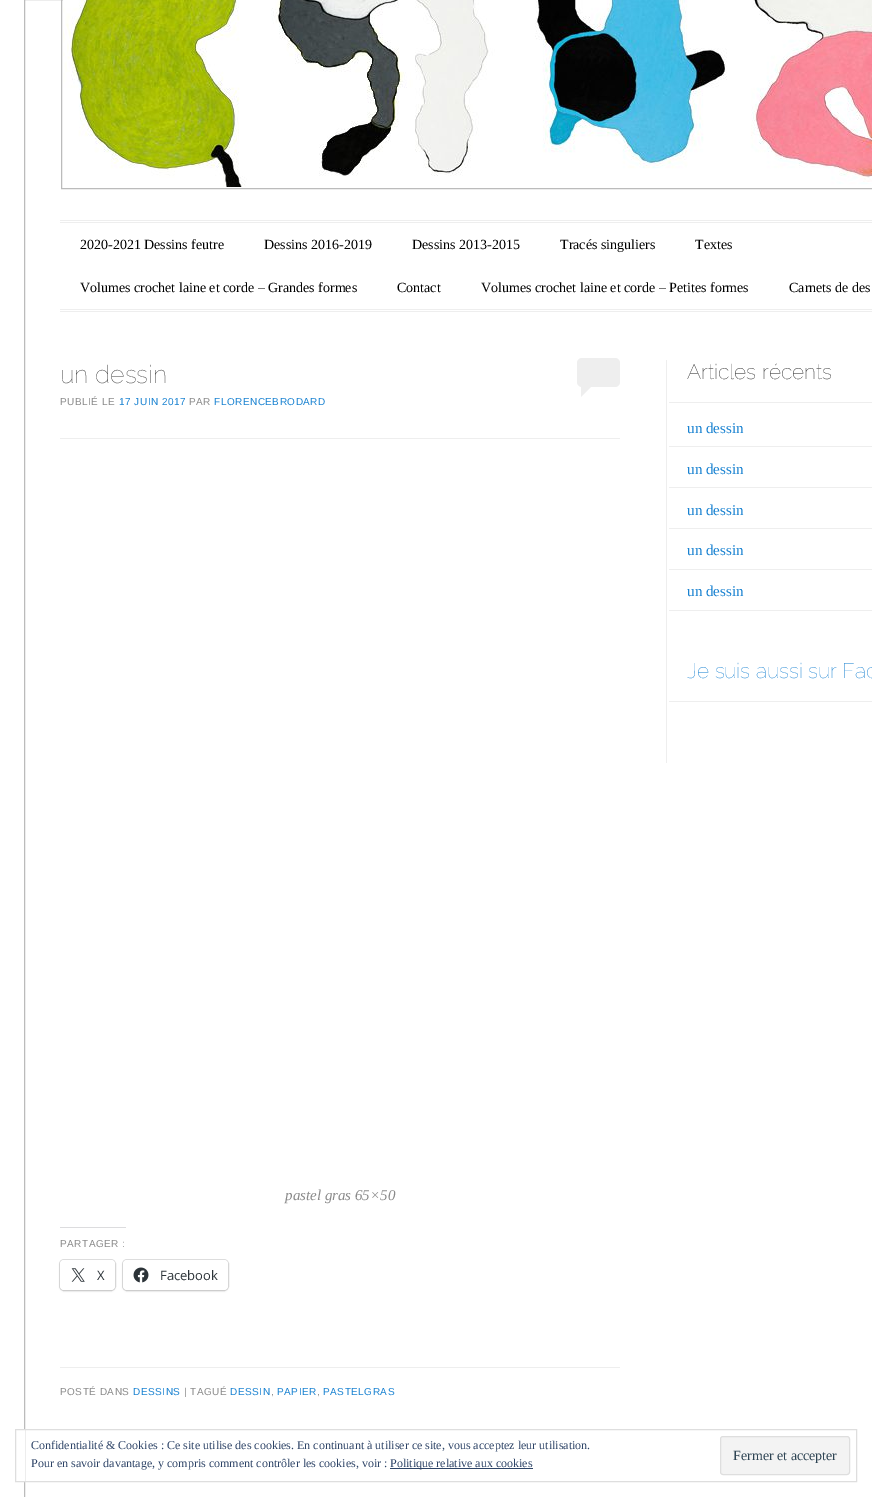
%!PS
<< /PageSize [872 1497] /PageUsesTransparency true >> setpagedevice
/m/moveto load def
/l/rlineto load def
/z/closepath load def
/f/fill load def
/s/stroke load def
/q/gsave load def
/Q_/grestore load def
/C { dup -16 bitshift 255 div exch dup -8 bitshift 255 and 255 div exch 255 and 255 div setrgbcolor } def
/F { [ exch dup neg 0 0 3 -1 roll 0 0 ] selectfont } def
/T { moveto show } def
/R { rectfill } def
/A { dup .setfillconstantalpha .setstrokeconstantalpha } def
/Q { 5 dict begin { /r /h /w /y /x } { exch def } forall
  x r add y moveto x w add y 2 copy h add r arct x w add y h add x 1 index r arct
  x y h add x y r arct x y 2 copy exch w add exch r arct closepath end } def
/S { 12 dict begin { /a /b /q /h /w /y /x } { exch def } forall gsave /was 0 def
  9 -2 -9 { dup b mul 4 div /e exch def 1 sub .425 mul 2.718 exch exp 1 add a .99 .min exch div /now exch def
    1 1 now sub 1 was sub div sub A /was now def
    w h .min e 2 mul add 0 gt { x e sub y e sub w e 2 mul add h e 2 mul add
      q e add b .6 mul add w h .min 2 div e add .min 0 .max Q fill } if } for grestore end } def
/I { 5 dict begin { /h /w /y /x /name } { exch def } forall
  gsave x y translate w h scale
  w h 8 [w 0 0 h 0 0] name (r) file false 3 colorimage grestore end } def
0 .pushpdf14devicefilter
0 1497 translate 1 -1 scale
4 setmiterlimit
16#FFFFFF C
0 0 872 1497 R
16#BBBBBB C
24.5 -.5 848 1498 rectstroke
61.5 -.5 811 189 rectstroke
(1.rgb) 63 0 809 187 I
16#EEEEEE C
60 220 812 1 R
60 222 812 1 R
60 309 812 1 R
60 311 812 1 R
/LiberationSerif-Regular 14 F
16#000000 C
(2020-2021 Dessins feutre) 80 249 T
(Dessins 2016-2019) 264 249 T
(Dessins 2013-2015) 412 249 T
(Tracés singuliers) 560 249 T
(Textes) 695 249 T
(Volumes crochet laine et corde – Grandes formes) 80 292 T
(Contact) 397 292 T
(Volumes crochet laine et corde – Petites formes) 481 292 T
(Carnets de des) 789 292 T
/Raleway-Thin 25 F
16#4A4A4A C
(un dessin) 60 383 T
16#EEEEEE C
577 358 43 29 5 Q f
581 397 m 0 -10 l 10 0 l z f
60 438 560 1 R
/LiberationSans-Regular 10 F
16#8A8A8A C
60 405 m .5 0 (PUBLIÉ LE) ashow
16#1982D1 C
119 405 m .5 0 (17 JUIN 2017) ashow
16#8A8A8A C
189 405 m .5 0 (PAR) ashow
16#1982D1 C
214 405 m .5 0 (FLORENCEBRODARD) ashow
/LiberationSerif-Italic 15 F
16#8A8A8A C
(pastel gras 65×50) 285 1200 T
16#DCDCDE C
60 1227 66 1 R
/LiberationSans-Regular 10 F
16#8A8A8A C
60 1247 m .5 0 (PARTAGER :) ashow
16#E0E0E0 C
59.5 1259.5 56 31 4.5 Q s
16#000000 C
60 1261 55 30 4 1 .12 S
16#FFFFFF C
60 1260 55 30 4 Q f
(2.rgb) 71 1268 14 14 I
/OpenSans-Regular 13 F
16#2C3338 C
(X) 97 1280 T
16#E0E0E0 C
122.5 1259.5 106 31 4.5 Q s
16#000000 C
123 1261 105 30 4 1 .12 S
16#FFFFFF C
123 1260 105 30 4 Q f
(3.rgb) 133 1267 16 16 I
16#2C3338 C
(Facebook) 160 1280 T
16#EEEEEE C
60 1367 560 1 R
/LiberationSans-Regular 10 F
16#8A8A8A C
60 1395 m .5 0 (POSTÉ DANS) ashow
16#1982D1 C
133 1395 m .5 0 (DESSINS) ashow
16#8A8A8A C
184 1395 m .5 0 (| TAGUÉ) ashow
16#1982D1 C
230 1395 m .5 0 (DESSIN) ashow
16#8A8A8A C
271 1395 m .5 0 (,) ashow
16#1982D1 C
277 1395 m .5 0 (PAPIER) ashow
16#8A8A8A C
317 1395 m .5 0 (,) ashow
16#1982D1 C
323 1395 m .5 0 (PASTELGRAS) ashow
16#EEEEEE C
666 360 1 403 R
669 402 203 1 R
/Raleway-Thin 21 F
16#2A2A2A C
(Articles récents) 687 379 T
16#EEEEEE C
669 446 203 1 R
/LiberationSerif-Regular 15 F
16#1982D1 C
(un dessin) 687 433 T
16#EEEEEE C
669 487 203 1 R
16#1982D1 C
(un dessin) 687 474 T
16#EEEEEE C
669 528 203 1 R
16#1982D1 C
(un dessin) 687 515 T
16#EEEEEE C
669 569 203 1 R
16#1982D1 C
(un dessin) 687 555 T
16#EEEEEE C
669 610 203 1 R
16#1982D1 C
(un dessin) 687 596 T
16#EEEEEE C
669 701 203 1 R
/Raleway-Thin 21 F
16#1982D1 C
(Je suis aussi sur Fac) 687 678 T
16#FFFFFF C
24 1430 1 51 R
16#DEDEDE C
15.5 1429.5 841 52 rectstroke
/LiberationSerif-Regular 12 F
16#2E4467 C
(Confidentialité & Cookies : Ce site utilise des cookies. En continuant à utiliser ce site, vous acceptez leur utilisation.) 31 1449 T
(Pour en savoir davantage, y compris comment contrôler les cookies, voir :) 31 1467 T
390 1468 143 1 R
(Politique relative aux cookies) 390 1467 T
16#F3F3F3 C
720.5 1436.5 129 38 2.5 Q q f Q_
16#DEDEDE C
s
/LiberationSerif-Regular 14 F
16#2E4453 C
(Fermer et accepter) 733 1460 T
.poppdf14devicefilter showpage
